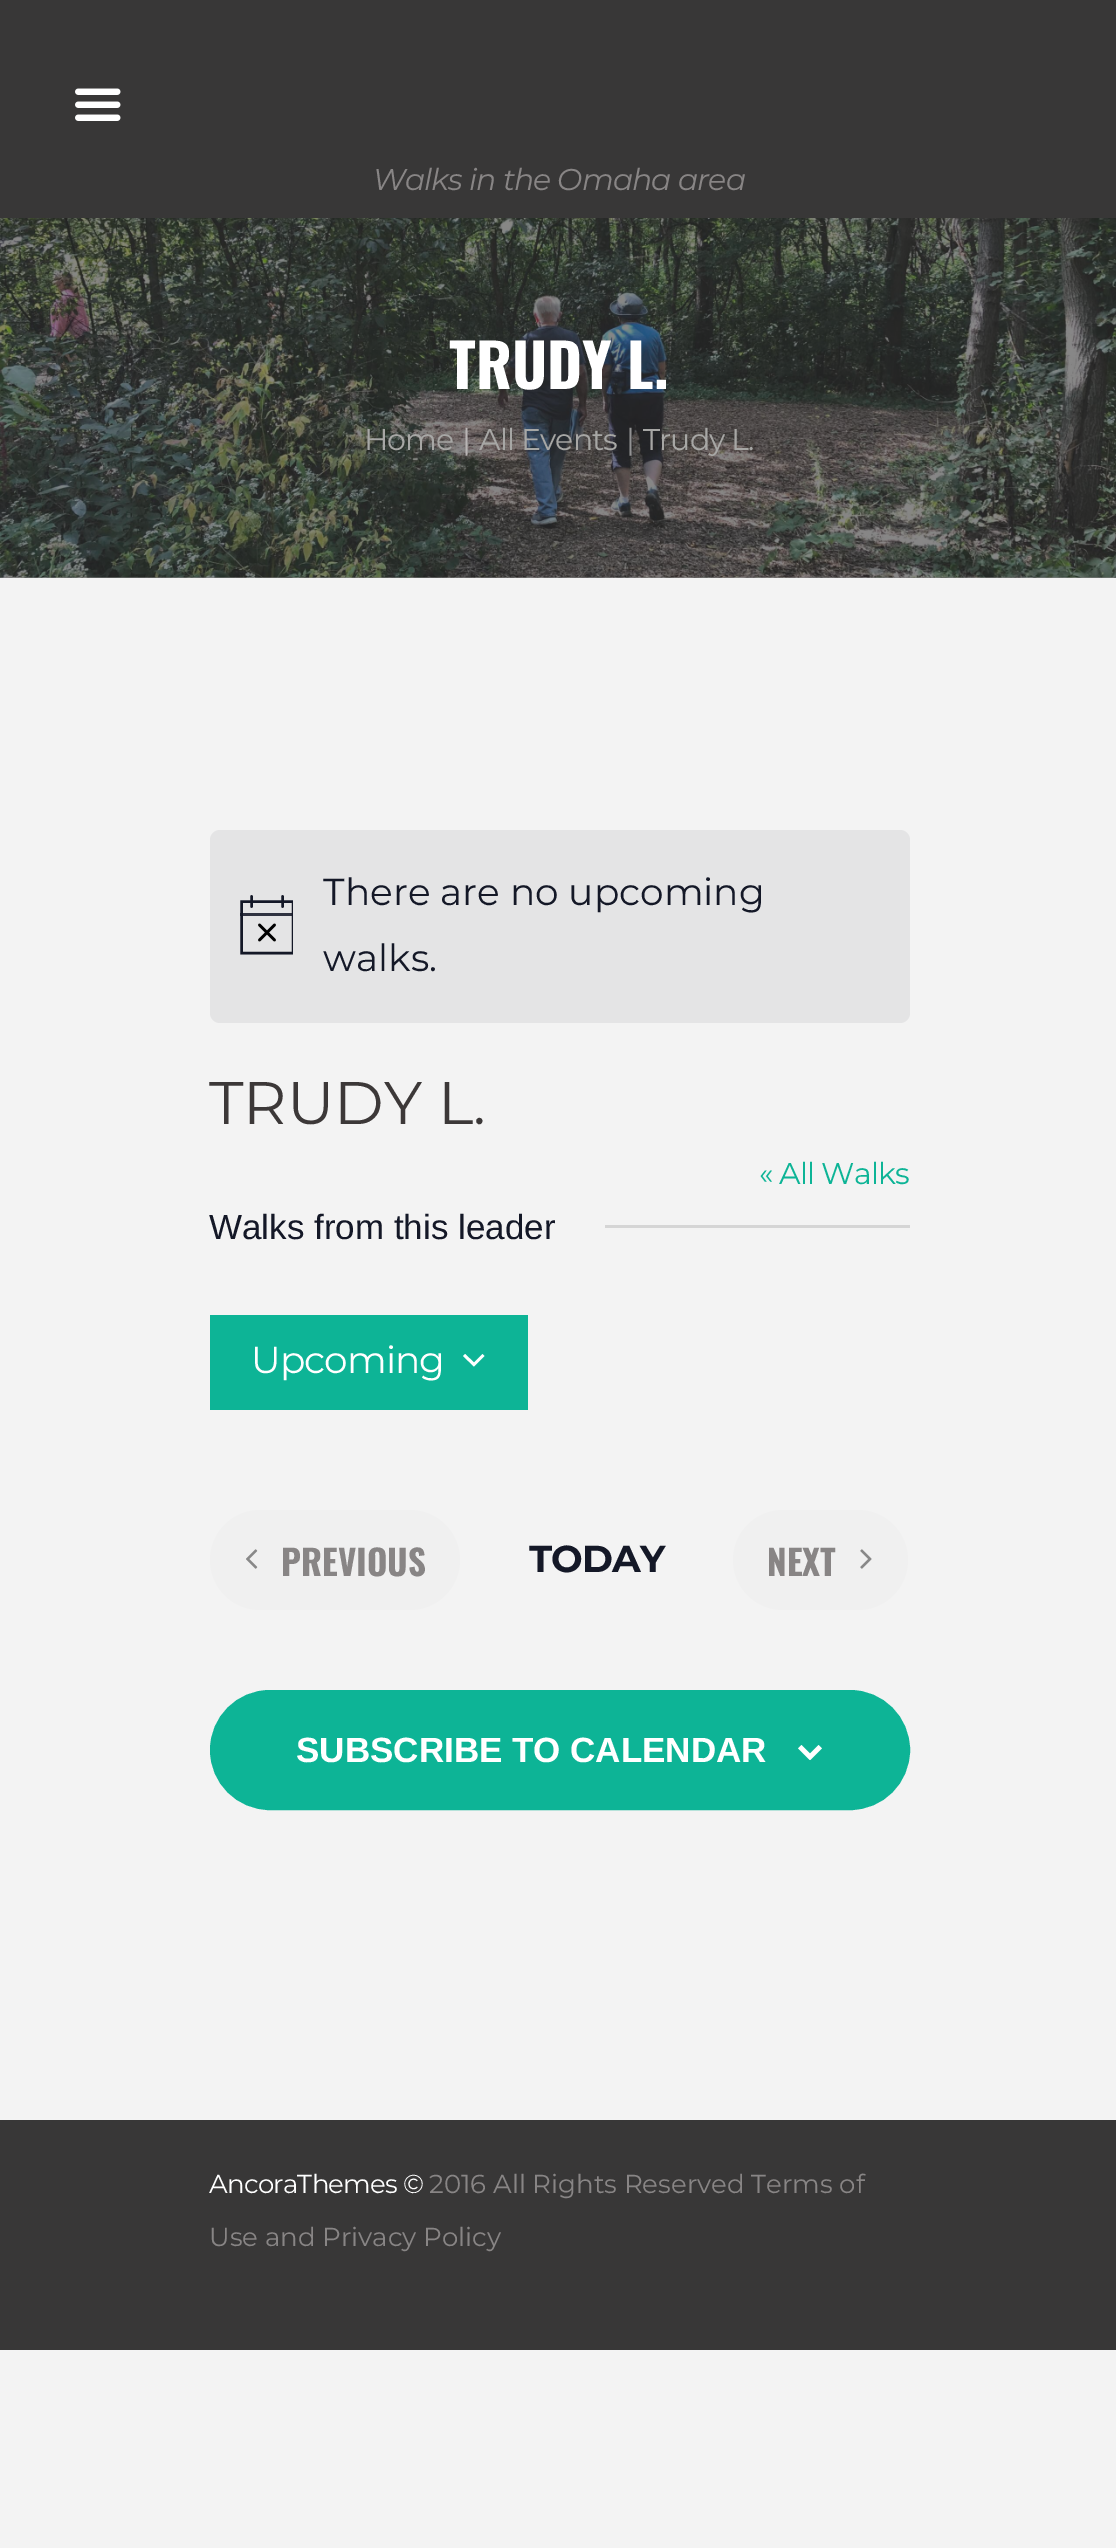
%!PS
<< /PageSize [1116 2548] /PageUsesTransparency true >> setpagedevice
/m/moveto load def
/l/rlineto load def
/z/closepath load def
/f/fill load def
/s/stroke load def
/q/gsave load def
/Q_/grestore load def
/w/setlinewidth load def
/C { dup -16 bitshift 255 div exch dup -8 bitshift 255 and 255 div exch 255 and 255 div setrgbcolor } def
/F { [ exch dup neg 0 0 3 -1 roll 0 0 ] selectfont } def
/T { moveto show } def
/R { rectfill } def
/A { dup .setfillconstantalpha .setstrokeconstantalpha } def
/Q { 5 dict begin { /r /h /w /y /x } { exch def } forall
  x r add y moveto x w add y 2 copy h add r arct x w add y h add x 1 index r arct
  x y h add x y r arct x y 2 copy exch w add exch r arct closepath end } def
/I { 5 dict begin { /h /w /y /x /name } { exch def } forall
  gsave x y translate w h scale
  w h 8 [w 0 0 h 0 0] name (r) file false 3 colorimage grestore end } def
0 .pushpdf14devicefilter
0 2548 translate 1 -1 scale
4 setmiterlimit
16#F3F3F3 C
0 0 1116 2548 R
16#838282 C
0 577 1116 1 R
16#383737 C
0 0 1116 218 R
(1.rgb) 75 88 46 33 I
/Montserrat-Italic 30 F
16#888585 C
373 190 m -.9 0 (Walks in the Omaha area) ashow
(2.rgb) 0 218 1116 360 I
/Oswald-Bold 60 F
16#FFFFFF C
(TRUDY L.) 449 389 T
/Montserrat-Regular 30 F
16#A7A7A5 C
364 450 m -.9 0 (Home) ashow
16#B9B5B5 C
462 450 m -.9 0 (|) ashow
16#A7A7A5 C
479 450 m -.9 0 (All Events) ashow
16#929293 C
626 450 m -.9 0 (|) ashow
16#A7A7A5 C
643 450 m -.9 0 (Trudy L.) ashow
16#E4E4E5 C
210 830 700 193 10 Q f
q
240 895 53 60 rectclip
16#141827 C
2.6 w
241.5 901.5 m 51.5 0 l 0 51.5 l -51.5 0 l z s
Q_
16#000000 C
2.6 w
1 setlinecap
259.5 925 m 15 15 l 274.5 925 m -15 15 l s
16#141827 C
251.5 896.5 m 0 10 l 282.5 896.5 m 0 10 l s
0.87 A
240 913 53 3 R
/Montserrat-Regular 37.5 F
1 A
(There are no upcoming) 323 905 T
(walks.) 323 971 T
/Montserrat-Regular 60 F
16#3C3838 C
(TRUDY L.) 209 1124 T
/Montserrat-Regular 30 F
16#0DB496 C
759 1184 m -.9 0 (« All Walks) ashow
/LiberationSans-Regular 35 F
16#141827 C
(Walks from this leader) 209 1239 T
16#D5D5D5 C
605 1225 305 3 R
16#0DB496 C
210 1315 318 95 R
/Montserrat-Regular 37.5 F
16#FFFFFF C
251 1373 m -1 0 (Upcoming) ashow
465 1354 m 9 8.5 l 8.5 -8.5 l 2 2 l -10.5 10.5 l -11 -10.5 l z eofill
16#F0F0F0 C
210 1510 250 100 50 Q f
(3.rgb) 246 1549 12 20 I
/Oswald-Bold 35 F
16#888585 C
(PREVIOUS) 281 1576 T
/Montserrat-Bold 37.5 F
16#141827 C
529 1572 m -1 0 (TODAY) ashow
16#F0F0F0 C
733 1510 175 100 50 Q f
/Oswald-Bold 35 F
16#888585 C
(NEXT) 767 1576 T
(4.rgb) 860 1549 12 20 I
16#0DB496 C
212.5 1692.5 695 115 57.5 Q q f Q_
5 w
0 setlinecap
s
/LiberationSans-Bold 35 F
16#FFFFFF C
(SUBSCRIBE TO CALENDAR) 296 1762 T
(5.rgb) 798 1745 24 15 I
16#383737 C
0 2120 1116 230 R
/Montserrat-Regular 26 F
16#FFFFFF C
209 2193 m -.75 0 (AncoraThemes ©) ashow
16#888585 C
(2016 All Rights Reserved Terms of) 429 2193 T
(Use and Privacy Policy) 209 2246 T
.poppdf14devicefilter showpage
